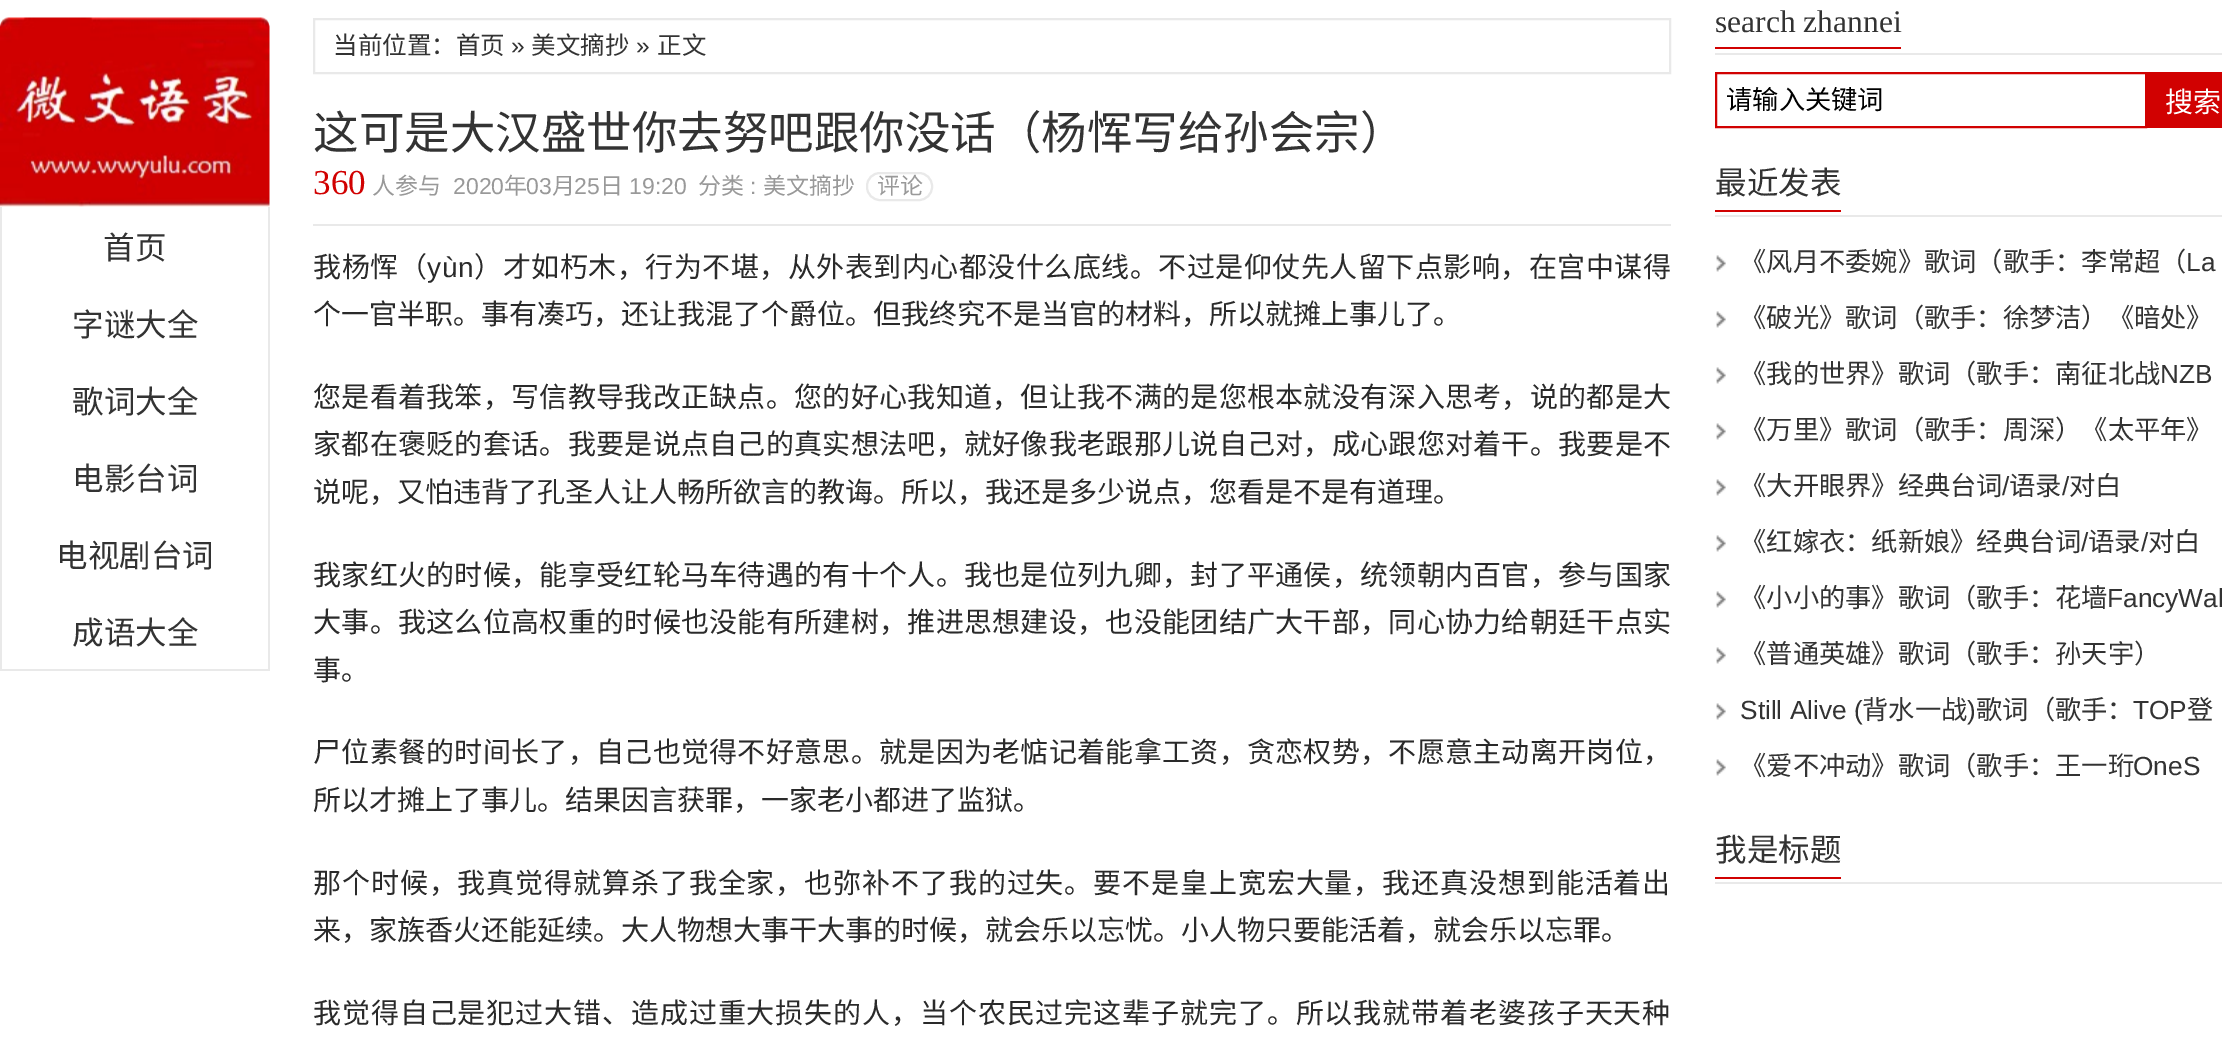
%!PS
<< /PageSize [2222 1055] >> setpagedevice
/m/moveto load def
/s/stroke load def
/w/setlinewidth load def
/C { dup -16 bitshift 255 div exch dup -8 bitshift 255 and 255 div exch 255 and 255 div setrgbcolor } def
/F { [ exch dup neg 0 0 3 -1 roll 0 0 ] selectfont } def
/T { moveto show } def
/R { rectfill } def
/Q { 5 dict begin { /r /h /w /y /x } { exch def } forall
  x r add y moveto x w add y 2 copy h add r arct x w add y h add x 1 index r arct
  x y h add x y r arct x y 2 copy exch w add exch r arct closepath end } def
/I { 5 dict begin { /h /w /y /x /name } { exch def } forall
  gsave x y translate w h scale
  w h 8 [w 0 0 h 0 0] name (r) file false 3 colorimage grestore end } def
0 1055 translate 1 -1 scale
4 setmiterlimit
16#FFFFFF C
0 0 2222 1055 R
(1.rgb) 0 17 270 190 I
16#E9E9E9 C
268 207 2 463 R
0 669 270 2 R
0 207 2 463 R
/NotoSansCJKSC-Regular 31.5 F
16#333333 C
(首页) 103 259 T
(字谜大全) 72 336 T
(歌词大全) 72 413 T
(电影台词) 72 490 T
(电视剧台词) 56 567 T
(成语大全) 72 644 T
16#E9E9E9 C
2 w
314 19 1356 54 rectstroke
/NotoSansCJKSC-Regular 24.5 F
16#333333 C
(当前位置：首页) 333 54 T
/LiberationSans-Regular 24.5 F
(») 511 54 T
/NotoSansCJKSC-Regular 24.5 F
(美文摘抄) 531 54 T
/LiberationSans-Regular 24.5 F
(») 636 54 T
/NotoSansCJKSC-Regular 24.5 F
(正文) 657 54 T
16#E9E9E9 C
313 224 1358 2 R
/NotoSansCJKSC-Regular 45.5 F
16#333333 C
(这可是大汉盛世你去努吧跟你没话（杨恽写给孙会宗）) 313 149 T
/LiberationSerif-Regular 35 F
16#D10101 C
(360) 313 194 T
/NotoSansCJKSC-Regular 23 F
16#999999 C
(人参与) 372 194 T
/LiberationSans-Regular 23 F
(2020) 453 194 T
/NotoSansCJKSC-Regular 23 F
(年) 504 194 T
/LiberationSans-Regular 23 F
(03) 526 194 T
/NotoSansCJKSC-Regular 23 F
(月) 552 194 T
/LiberationSans-Regular 23 F
(25) 574 194 T
/NotoSansCJKSC-Regular 23 F
(日) 600 194 T
/LiberationSans-Regular 23 F
(19:20) 629 194 T
/NotoSansCJKSC-Regular 23 F
(分类) 698 194 T
/LiberationSans-Regular 23 F
(:) 750 194 T
/NotoSansCJKSC-Regular 23 F
(美文摘抄) 763 194 T
16#E9E9E9 C
867 173 65 27 13 Q s
16#999999 C
(评论) 877 194 T
/NotoSansCJKSC-Regular 28 F
16#2A2A2A C
313 277 m .5 0 (我杨恽（) ashow
/LiberationSans-Regular 28 F
427 277 m .5 0 (yùn) ashow
/NotoSansCJKSC-Regular 28 F
474 277 m .5 0 (）才如朽木，行为不堪，从外表到内心都没什么底线。不过是仰仗先人留下点影响，在宫中谋得) ashow
(个一官半职。事有凑巧，还让我混了个爵位。但我终究不是当官的材料，所以就摊上事儿了。) 313 324 T
313 407 m .3 0 (您是看着我笨，写信教导我改正缺点。您的好心我知道，但让我不满的是您根本就没有深入思考，说的都是大) ashow
313 454 m .3 0 (家都在褒贬的套话。我要是说点自己的真实想法吧，就好像我老跟那儿说自己对，成心跟您对着干。我要是不) ashow
(说呢，又怕违背了孔圣人让人畅所欲言的教诲。所以，我还是多少说点，您看是不是有道理。) 313 502 T
313 585 m .3 0 (我家红火的时候，能享受红轮马车待遇的有十个人。我也是位列九卿，封了平通侯，统领朝内百官，参与国家) ashow
313 632 m .3 0 (大事。我这么位高权重的时候也没能有所建树，推进思想建设，也没能团结广大干部，同心协力给朝廷干点实) ashow
(事。) 313 680 T
313 762 m .3 0 (尸位素餐的时间长了，自己也觉得不好意思。就是因为老惦记着能拿工资，贪恋权势，不愿意主动离开岗位，) ashow
(所以才摊上了事儿。结果因言获罪，一家老小都进了监狱。) 313 810 T
313 893 m .9 0 (那个时候，我真觉得就算杀了我全家，也弥补不了我的过失。要不是皇上宽宏大量，我还真没想到能活着出) ashow
(来，家族香火还能延续。大人物想大事干大事的时候，就会乐以忘忧。小人物只要能活着，就会乐以忘罪。) 313 940 T
313 1023 m .9 0 (我觉得自己是犯过大错、造成过重大损失的人，当个农民过完这辈子就完了。所以我就带着老婆孩子天天种) ashow
16#E9E9E9 C
1715 53 507 2 R
/LiberationSerif-Regular 31.5 F
16#333333 C
(search zhannei) 1715 32 T
16#D10101 C
1715 47 186 2 R
1716 73 430 54 rectstroke
/NotoSansCJKSC-Regular 26.25 F
16#000000 C
(请输入关键词) 1726 109 T
16#D10101 C
2147 72 75 56 R
/NotoSansCJKSC-Regular 28 F
16#FFFFFF C
(搜索) 2165 112 T
16#E9E9E9 C
1715 215 507 2 R
/NotoSansCJKSC-Regular 31.5 F
16#333333 C
(最近发表) 1715 194 T
16#D10101 C
1715 210 126 2 R
(2.rgb) 1716 255 10 17 I
/NotoSansCJKSC-Regular 26.25 F
16#333333 C
(《风月不委婉》歌词（歌手：李常超（) 1740 271 T
/LiberationSans-Regular 26.25 F
(La) 2186 271 T
(2.rgb) 1716 311 10 17 I
/NotoSansCJKSC-Regular 26.25 F
(《破光》歌词（歌手：徐梦洁）《暗处》) 1740 327 T
(2.rgb) 1716 367 10 17 I
(《我的世界》歌词（歌手：南征北战) 1740 383 T
/LiberationSans-Regular 26.25 F
(NZB) 2160 383 T
(2.rgb) 1716 423 10 17 I
/NotoSansCJKSC-Regular 26.25 F
(《万里》歌词（歌手：周深）《太平年》) 1740 439 T
(2.rgb) 1716 479 10 17 I
(《大开眼界》经典台词) 1740 495 T
/LiberationSans-Regular 26.25 F
(/) 2002 495 T
/NotoSansCJKSC-Regular 26.25 F
(语录) 2009 495 T
/LiberationSans-Regular 26.25 F
(/) 2062 495 T
/NotoSansCJKSC-Regular 26.25 F
(对白) 2069 495 T
(2.rgb) 1716 535 10 17 I
(《红嫁衣：纸新娘》经典台词) 1740 551 T
/LiberationSans-Regular 26.25 F
(/) 2081 551 T
/NotoSansCJKSC-Regular 26.25 F
(语录) 2088 551 T
/LiberationSans-Regular 26.25 F
(/) 2141 551 T
/NotoSansCJKSC-Regular 26.25 F
(对白) 2148 551 T
(2.rgb) 1716 591 10 17 I
(《小小的事》歌词（歌手：花墙) 1740 607 T
/LiberationSans-Regular 26.25 F
(FancyWal) 2107 607 T
(2.rgb) 1716 647 10 17 I
/NotoSansCJKSC-Regular 26.25 F
(《普通英雄》歌词（歌手：孙天宇）) 1740 663 T
(2.rgb) 1716 703 10 17 I
/LiberationSans-Regular 26.25 F
(Still Alive \() 1740 719 T
/NotoSansCJKSC-Regular 26.25 F
(背水一战) 1862 719 T
/LiberationSans-Regular 26.25 F
(\)) 1967 719 T
/NotoSansCJKSC-Regular 26.25 F
(歌词（歌手：) 1976 719 T
/LiberationSans-Regular 26.25 F
(TOP) 2133 719 T
/NotoSansCJKSC-Regular 26.25 F
(登) 2187 719 T
(2.rgb) 1716 759 10 17 I
(《爱不冲动》歌词（歌手：王一珩) 1740 775 T
/LiberationSans-Regular 26.25 F
(OneS) 2133 775 T
16#E9E9E9 C
1715 882 507 2 R
/NotoSansCJKSC-Regular 31.5 F
16#333333 C
(我是标题) 1715 861 T
16#D10101 C
1715 877 126 2 R
showpage
